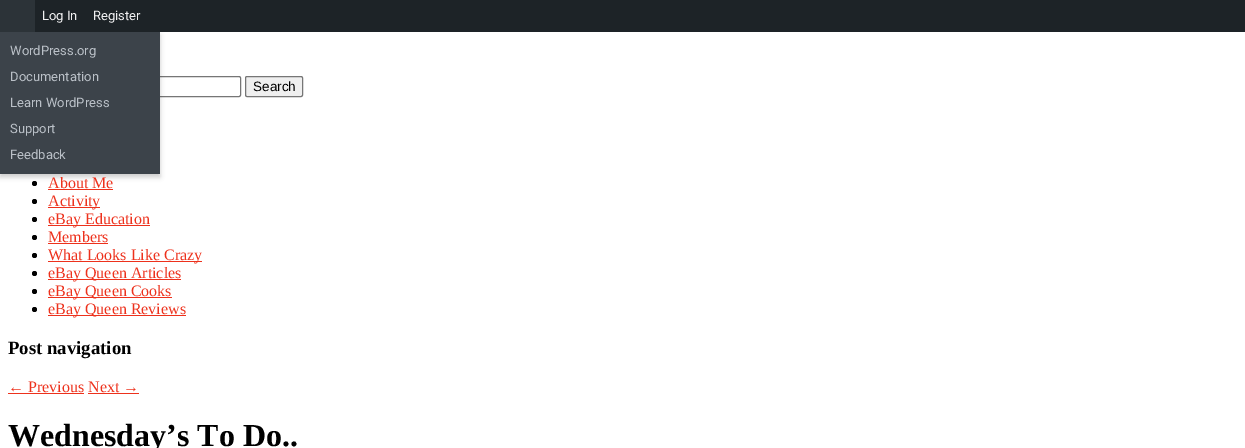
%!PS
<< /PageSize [1245 448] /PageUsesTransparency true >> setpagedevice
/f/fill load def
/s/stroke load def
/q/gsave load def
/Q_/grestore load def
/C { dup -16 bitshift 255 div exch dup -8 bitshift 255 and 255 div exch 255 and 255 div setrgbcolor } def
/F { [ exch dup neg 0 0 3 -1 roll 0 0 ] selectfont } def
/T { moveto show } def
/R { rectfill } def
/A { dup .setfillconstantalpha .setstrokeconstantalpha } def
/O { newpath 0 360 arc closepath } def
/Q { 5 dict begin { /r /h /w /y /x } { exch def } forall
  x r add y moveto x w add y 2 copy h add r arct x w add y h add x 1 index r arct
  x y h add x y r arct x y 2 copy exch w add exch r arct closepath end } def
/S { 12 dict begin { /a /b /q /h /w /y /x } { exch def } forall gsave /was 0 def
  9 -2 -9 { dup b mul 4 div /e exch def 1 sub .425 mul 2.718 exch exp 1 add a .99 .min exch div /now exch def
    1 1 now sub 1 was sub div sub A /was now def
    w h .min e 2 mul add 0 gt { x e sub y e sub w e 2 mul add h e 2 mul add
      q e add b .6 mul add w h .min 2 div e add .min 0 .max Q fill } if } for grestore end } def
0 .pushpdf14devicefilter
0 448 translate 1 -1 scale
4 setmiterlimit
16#FFFFFF C
0 0 1245 448 R
16#1D2327 C
35 0 1210 32 R
/Roboto-Regular 13 F
16#F0F0F1 C
(Log In) 42 20 T
(Register) 93 20 T
16#2C3338 C
0 0 35 32 R
16#767676 C
56.5 76.5 184 20 1.5 Q s
16#000000 C
34.5 183.5 2.5 O f
0 35 160 142 0 2.5 .2 S
16#3C434A C
0 32 160 142 R
16#BAC0C7 C
(WordPress.org) 10 55 T
(Documentation) 10 81 T
(Learn WordPress) 10 107 T
(Support) 10 133 T
(Feedback) 10 159 T
16#EFEFEF C
245.5 76.5 57 20 1.5 Q q f Q_
16#767676 C
s
/LiberationSans-Regular 13.5 F
16#000000 C
(Search) 253 91 T
/LiberationSerif-Regular 16 F
16#ED311C C
(About Me) 48 188 T
48 189 65 1 R
16#000000 C
34.5 201.5 2.5 O f
16#ED311C C
48 207 52 1 R
(Activity) 48 206 T
16#000000 C
34.5 219.5 2.5 O f
16#ED311C C
48 225 102 1 R
(eBay Education) 48 224 T
16#000000 C
34.5 237.5 2.5 O f
16#ED311C C
(Members) 48 242 T
48 243 60 1 R
16#000000 C
34.5 255.5 2.5 O f
16#ED311C C
48 261 154 1 R
(What Looks Like Crazy) 48 260 T
16#000000 C
34.5 273.5 2.5 O f
16#ED311C C
48 279 133 1 R
(eBay Queen Articles) 48 278 T
16#000000 C
34.5 291.5 2.5 O f
16#ED311C C
48 297 124 1 R
(eBay Queen Cooks) 48 296 T
16#000000 C
34.5 309.5 2.5 O f
16#ED311C C
48 315 138 1 R
(eBay Queen Reviews) 48 314 T
/LiberationSerif-Bold 18.75 F
16#000000 C
(Post navigation) 8 354 T
/LiberationSerif-Regular 16 F
16#ED311C C
(← Previous Next →) 8 392 T
8 393 76 1 R
88 393 51 1 R
/LiberationSerif-Bold 32 F
16#000000 C
(Wednesday’s To Do..) 8 446 T
.poppdf14devicefilter showpage
